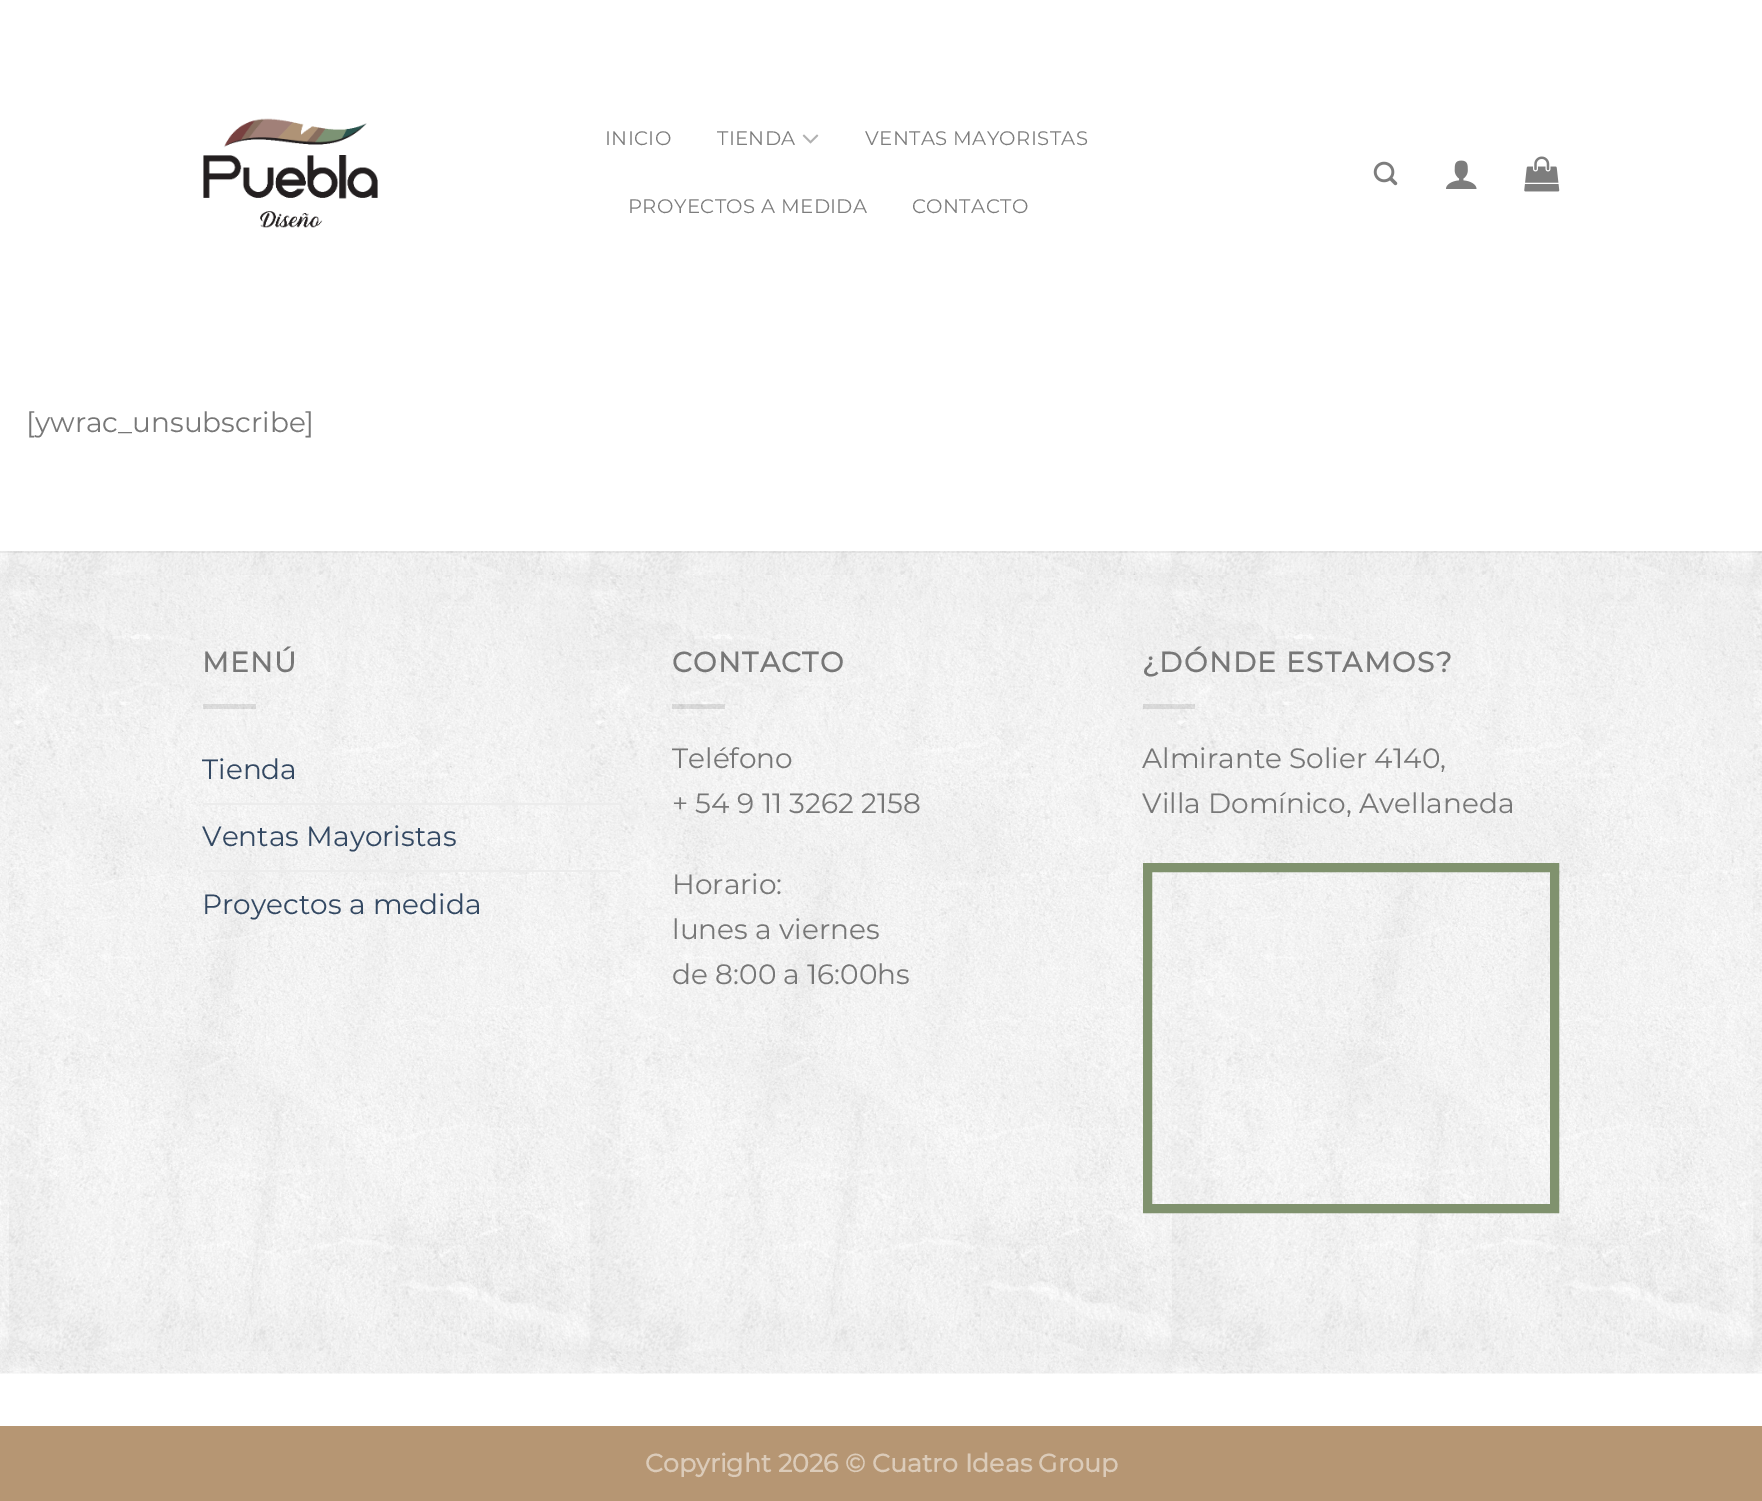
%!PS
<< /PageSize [1762 1501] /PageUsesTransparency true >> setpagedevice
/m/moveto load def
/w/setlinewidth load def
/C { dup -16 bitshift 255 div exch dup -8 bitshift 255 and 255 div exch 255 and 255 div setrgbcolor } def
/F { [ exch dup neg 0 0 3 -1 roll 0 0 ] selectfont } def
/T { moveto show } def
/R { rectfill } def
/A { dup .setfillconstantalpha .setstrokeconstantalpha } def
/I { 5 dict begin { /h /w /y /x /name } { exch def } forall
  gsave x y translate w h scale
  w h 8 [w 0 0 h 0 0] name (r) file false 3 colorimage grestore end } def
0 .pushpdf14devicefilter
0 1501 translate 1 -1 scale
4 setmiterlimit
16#FFFFFF C
0 0 1762 1501 R
(1.rgb) 203 118 175 110 I
/Montserrat-Regular 19.6 F
16#7D7D7D C
605 145 m .4 0 (INICIO) ashow
717 145 m .4 0 (TIENDA) ashow
(2.rgb) 802 134 17 10 I
865 145 m .4 0 (VENTAS MAYORISTAS) ashow
628 213 m .4 0 (PROYECTOS A MEDIDA) ashow
912 213 m .4 0 (CONTACTO) ashow
(3.rgb) 1373 161 25 25 I
(4.rgb) 1446 160 31 29 I
(5.rgb) 1524 156 36 36 I
/Montserrat-Regular 28 F
16#777777 C
([ywrac_unsubscribe]) 26 432 T
(6.rgb) 0 551 1762 823 I
0.05 A
16#000000 C
0 551 1762 2 R
/Montserrat-Bold 28 F
1 A
16#777777 C
202 672 m 1.4 0 (MENÚ) ashow
0.1 A
16#000000 C
203 704 53 5 R
/Montserrat-Regular 28 F
1 A
16#334862 C
(Tienda) 202 779 T
16#ECECEC C
203 803 417 2 R
16#334862 C
(Ventas Mayoristas) 202 846 T
16#ECECEC C
203 870 417 2 R
16#334862 C
(Proyectos a medida) 202 914 T
/Montserrat-Bold 28 F
16#777777 C
672 672 m 1.4 0 (CONTACTO) ashow
0.1 A
16#000000 C
672 704 53 5 R
/Montserrat-Regular 28 F
1 A
16#777777 C
(Teléfono) 672 768 T
(+ 54 9 11 3262 2158) 672 813 T
(Horario:) 672 894 T
(lunes a viernes) 672 939 T
(de 8:00 a 16:00hs) 672 984 T
/Montserrat-Bold 28 F
1142 672 m 1.4 0 (¿DÓNDE ESTAMOS?) ashow
0.1 A
16#000000 C
1143 704 52 5 R
/Montserrat-Regular 28 F
1 A
16#777777 C
(Almirante Solier 4140,) 1142 768 T
(Villa Domínico, Avellaneda) 1142 813 T
16#80926E C
9 w
1147.5 867.5 407 341 rectstroke
16#B69673 C
0 1426 1762 75 R
/Montserrat-Bold 25.25 F
16#DBCBB9 C
(Copyright 2026 © Cuatro Ideas Group) 645 1472 T
.poppdf14devicefilter showpage
